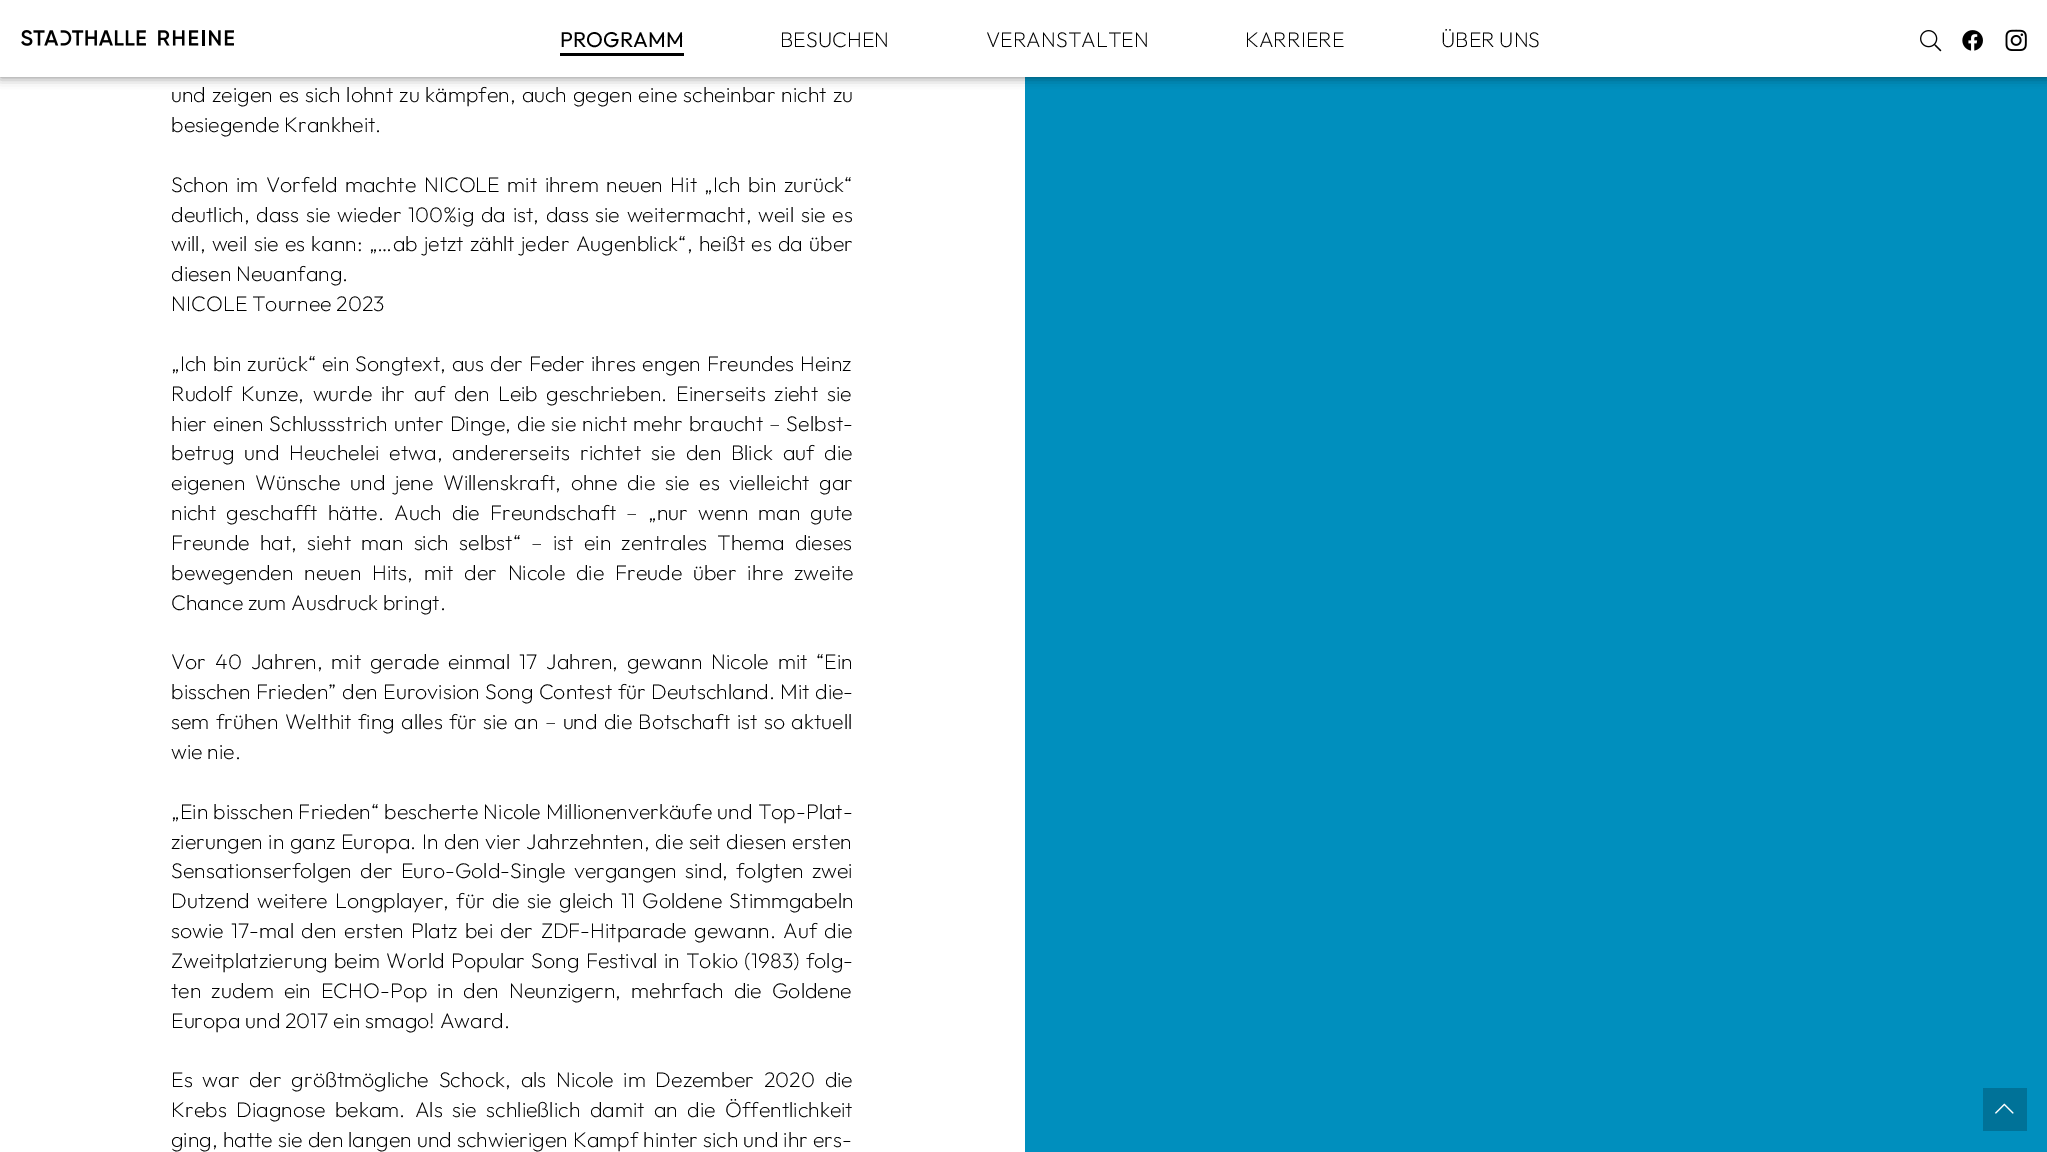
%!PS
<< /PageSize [2047 1152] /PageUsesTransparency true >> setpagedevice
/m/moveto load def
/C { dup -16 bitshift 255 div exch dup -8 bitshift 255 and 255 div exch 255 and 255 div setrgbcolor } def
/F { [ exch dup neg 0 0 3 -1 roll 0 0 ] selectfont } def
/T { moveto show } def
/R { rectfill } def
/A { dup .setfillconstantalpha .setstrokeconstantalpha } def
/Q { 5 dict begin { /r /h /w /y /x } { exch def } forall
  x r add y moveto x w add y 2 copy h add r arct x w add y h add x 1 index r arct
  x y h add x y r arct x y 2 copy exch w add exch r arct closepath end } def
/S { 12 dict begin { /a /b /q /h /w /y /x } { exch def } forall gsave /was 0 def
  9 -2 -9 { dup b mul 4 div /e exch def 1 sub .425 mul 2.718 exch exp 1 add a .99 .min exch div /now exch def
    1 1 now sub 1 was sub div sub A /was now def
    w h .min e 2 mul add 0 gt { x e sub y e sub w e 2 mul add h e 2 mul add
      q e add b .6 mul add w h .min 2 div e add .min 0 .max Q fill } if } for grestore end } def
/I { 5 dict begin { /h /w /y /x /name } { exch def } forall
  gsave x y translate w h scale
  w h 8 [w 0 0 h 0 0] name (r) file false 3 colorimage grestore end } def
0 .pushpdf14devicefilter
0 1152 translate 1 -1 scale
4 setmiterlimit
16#FFFFFF C
0 0 2047 1152 R
16#008FBE C
1025 77 1022 1075 R
16#000000 C
0 0 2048 77 0 5.5 .5 S
16#FFFFFF C
0 0 2047 77 R
(1.rgb) 21 30 213 16 I
16#000000 C
560 53 124 3 R
/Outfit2-Thin 21.3 F
(PROGRAMM) 560 47 T
/Outfit-Thin 21.3 F
(BESUCHEN) 780 47 T
(VERANSTALTEN) 986 47 T
(KARRIERE) 1245 47 T
(ÜBER UNS) 1441 47 T
(2.rgb) 1920 30 22 22 I
(3.rgb) 1962 30 21 21 I
(4.rgb) 2005 29 22 22 I
171 102 m 1.25 0 32 (und zeigen es sich lohnt zu kämpfen, auch gegen eine scheinbar nicht zu) widthshow
(besiegende Krankheit.) 171 132 T
171 192 m 2.75 0 32 (Schon im Vorfeld machte NICOLE mit ihrem neuen Hit „Ich bin zurück“) widthshow
171 222 m 1.9 0 32 (deutlich, dass sie wieder 100%ig da ist, dass sie weitermacht, weil sie es) widthshow
171 251 m 1.4 0 32 (will, weil sie es kann: „…ab jetzt zählt jeder Augenblick“, heißt es da über) widthshow
(diesen Neuanfang.) 171 281 T
(NICOLE Tournee 2023) 171 311 T
171 371 m 1.25 0 32 („Ich bin zurück“ ein Songtext, aus der Feder ihres engen Freundes Heinz) widthshow
171 401 m 3.75 0 32 (Rudolf Kunze, wurde ihr auf den Leib geschrieben. Einerseits zieht sie) widthshow
171 431 m 1.25 0 32 (hier einen Schlussstrich unter Dinge, die sie nicht mehr braucht – Selbst-) widthshow
171 460 m 5 0 32 (betrug und Heuchelei etwa, andererseits richtet sie den Blick auf die) widthshow
171 490 m 4.75 0 32 (eigenen Wünsche und jene Willenskraft, ohne die sie es vielleicht gar) widthshow
171 520 m 5.25 0 32 (nicht geschafft hätte. Auch die Freundschaft – „nur wenn man gute) widthshow
171 550 m 5.5 0 32 (Freunde hat, sieht man sich selbst“ – ist ein zentrales Thema dieses) widthshow
171 580 m 6 0 32 (bewegenden neuen Hits, mit der Nicole die Freude über ihre zweite) widthshow
(Chance zum Ausdruck bringt.) 171 610 T
171 669 m 4.1 0 32 (Vor 40 Jahren, mit gerade einmal 17 Jahren, gewann Nicole mit “Ein) widthshow
171 699 m .75 0 32 (bisschen Frieden” den Eurovision Song Contest für Deutschland. Mit die-) widthshow
171 729 m 1.6 0 32 (sem frühen Welthit fing alles für sie an – und die Botschaft ist so aktuell) widthshow
(wie nie.) 171 759 T
171 819 m .5 0 32 („Ein bisschen Frieden“ bescherte Nicole Millionenverkäufe und Top-Plat-) widthshow
171 849 m .75 0 32 (zierungen in ganz Europa. In den vier Jahrzehnten, die seit diesen ersten) widthshow
171 878 m 3.25 0 32 (Sensationserfolgen der Euro-Gold-Single vergangen sind, folgten zwei) widthshow
171 908 m 2.5 0 32 (Dutzend weitere Longplayer, für die sie gleich 11 Goldene Stimmgabeln) widthshow
171 938 m 2.6 0 32 (sowie 17-mal den ersten Platz bei der ZDF-Hitparade gewann. Auf die) widthshow
171 968 m 1.5 0 32 (Zweitplatzierung beim World Popular Song Festival in Tokio \(1983\) folg-) widthshow
171 998 m 5.25 0 32 (ten zudem ein ECHO-Pop in den Neunzigern, mehrfach die Goldene) widthshow
(Europa und 2017 ein smago! Award.) 171 1028 T
171 1087 m 5 0 32 (Es war der größtmögliche Schock, als Nicole im Dezember 2020 die) widthshow
171 1117 m 4.75 0 32 (Krebs Diagnose bekam. Als sie schließlich damit an die Öffentlichkeit) widthshow
171 1147 m .25 0 32 (ging, hatte sie den langen und schwierigen Kampf hinter sich und ihr ers-) widthshow
16#007298 C
1983 1088 44 43 R
(5.rgb) 1995 1103 19 11 I
.poppdf14devicefilter showpage
